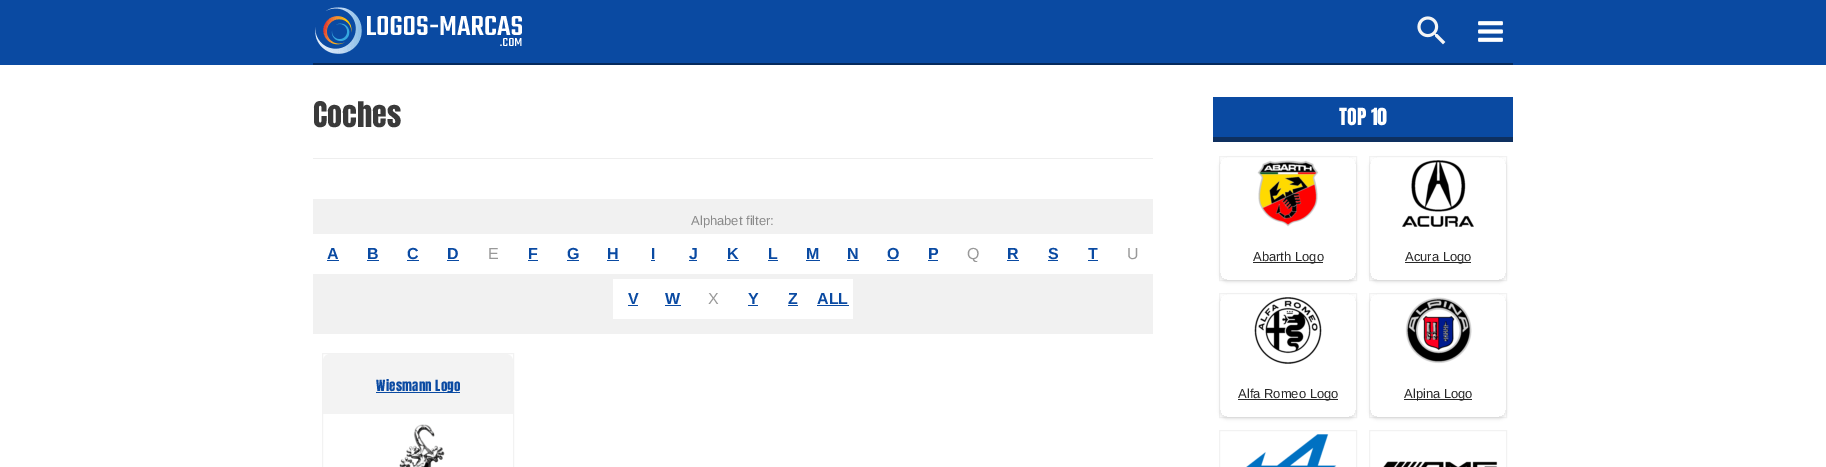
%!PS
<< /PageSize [1826 467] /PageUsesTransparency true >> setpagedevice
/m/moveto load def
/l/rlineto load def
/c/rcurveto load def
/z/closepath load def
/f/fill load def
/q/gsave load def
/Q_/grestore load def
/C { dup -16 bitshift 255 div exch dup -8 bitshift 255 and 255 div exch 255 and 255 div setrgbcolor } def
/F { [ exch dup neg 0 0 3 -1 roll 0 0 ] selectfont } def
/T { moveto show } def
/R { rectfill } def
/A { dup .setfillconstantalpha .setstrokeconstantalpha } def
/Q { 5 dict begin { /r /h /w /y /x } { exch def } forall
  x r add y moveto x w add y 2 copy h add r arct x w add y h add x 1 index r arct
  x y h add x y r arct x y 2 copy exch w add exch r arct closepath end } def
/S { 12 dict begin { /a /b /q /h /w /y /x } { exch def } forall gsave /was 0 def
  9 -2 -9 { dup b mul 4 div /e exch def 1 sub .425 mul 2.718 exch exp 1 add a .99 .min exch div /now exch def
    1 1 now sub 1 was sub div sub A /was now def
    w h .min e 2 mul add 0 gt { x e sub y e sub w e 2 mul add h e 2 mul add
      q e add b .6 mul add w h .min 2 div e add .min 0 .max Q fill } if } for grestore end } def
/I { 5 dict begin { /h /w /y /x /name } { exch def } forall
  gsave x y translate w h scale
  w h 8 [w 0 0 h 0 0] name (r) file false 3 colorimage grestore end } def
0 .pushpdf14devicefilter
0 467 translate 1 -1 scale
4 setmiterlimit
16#FFFFFF C
0 0 1826 467 R
16#0A4AA2 C
0 0 1826 65 R
16#052A5D C
313 63 1200 2 R
(1.rgb) 315 7 207 47 I
(2.rgb) 1417 16 29 29 I
(3.rgb) 1478 21 25 21 I
16#EEEEEE C
313 158 840 1 R
/Anton-Regular 30 F
16#3A3A3A C
(Coches) 313 127 T
16#F1F1F1 C
313 199 840 135 R
/LiberationSans-Regular 13 F
16#8A8A8A C
(Alphabet filter:) 691 225 T
16#FFFFFF C
313 234 840 40 R
/LiberationSans-Bold 16 F
16#0A4AA2 C
(A) 327 259 T
327 260 12 1 R
(B) 367 259 T
367 260 12 1 R
(C) 407 259 T
407 260 12 1 R
(D) 447 259 T
447 260 12 1 R
/LiberationSans-Regular 16 F
16#999999 C
(E) 488 259 T
/LiberationSans-Bold 16 F
16#0A4AA2 C
(F) 528 259 T
528 260 10 1 R
(G) 567 259 T
567 260 12 1 R
(H) 607 259 T
607 260 12 1 R
(I) 651 259 T
651 260 4 1 R
(J) 689 259 T
689 260 8 1 R
(K) 727 259 T
727 260 12 1 R
(L) 768 259 T
768 260 10 1 R
(M) 806 259 T
806 260 14 1 R
(N) 847 259 T
847 260 12 1 R
(O) 887 259 T
887 260 12 1 R
(P) 928 259 T
928 260 10 1 R
/LiberationSans-Regular 16 F
16#999999 C
(Q) 967 259 T
/LiberationSans-Bold 16 F
16#0A4AA2 C
(R) 1007 259 T
1007 260 12 1 R
(S) 1048 259 T
1048 260 10 1 R
(T) 1088 259 T
1088 260 10 1 R
/LiberationSans-Regular 16 F
16#999999 C
(U) 1127 259 T
16#FFFFFF C
613 279 240 40 R
/LiberationSans-Bold 16 F
16#0A4AA2 C
(V) 628 304 T
628 305 10 1 R
(W) 665 304 T
665 305 16 1 R
/LiberationSans-Regular 16 F
16#999999 C
(X) 708 304 T
/LiberationSans-Bold 16 F
16#0A4AA2 C
(Y) 748 304 T
748 305 10 1 R
(Z) 788 304 T
788 305 10 1 R
(ALL) 817 304 T
817 305 32 1 R
0.05 A
16#000000 C
322.5 353.5 191 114 rectstroke
1 A
16#F3F3F3 C
330 354 m 176 0 l 4 0 7 3 7 7 c 0 53 l -190 0 l 0 -53 l 0 -4 3 -7 7 -7 c z f
16#0A4AA2 C
376 392 84 1 R
/Anton-Regular 13 F
376 391 m .25 0 (Wiesmann Logo) ashow
(4.rgb) 399 424 46 43 I
1213 97 300 40 R
16#0E3060 C
1213 137 300 5 R
/Anton-Regular 20 F
16#FFFFFF C
(TOP 10) 1339 125 T
q
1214 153 m 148 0 l 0 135 l -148 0 l z 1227 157 m 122 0 l 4 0 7 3 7 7 c 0 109 l 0 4 -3 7 -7 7 c -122 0 l -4 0 -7 -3 -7 -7 c 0 -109 l 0 -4 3 -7 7 -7 c z eoclip newpath
16#000000 C
1220 159 136 123 7 1.5 .1 S
Q_
0.05 A
16#000000 C
1219.5 156.5 137 124 rectstroke
1 A
(5.rgb) 1257 160 62 67 I
16#282828 C
1253 262 70 1 R
/LiberationSans-Regular 13 F
(Abarth Logo) 1253 261 T
q
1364 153 m 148 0 l 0 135 l -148 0 l z 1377 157 m 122 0 l 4 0 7 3 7 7 c 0 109 l 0 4 -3 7 -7 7 c -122 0 l -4 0 -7 -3 -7 -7 c 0 -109 l 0 -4 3 -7 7 -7 c z eoclip newpath
16#000000 C
1370 159 136 123 7 1.5 .1 S
Q_
0.05 A
16#000000 C
1369.5 156.5 137 124 rectstroke
1 A
(6.rgb) 1402 160 72 67 I
16#282828 C
1405 262 66 1 R
(Acura Logo) 1405 261 T
q
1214 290 m 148 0 l 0 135 l -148 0 l z 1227 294 m 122 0 l 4 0 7 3 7 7 c 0 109 l 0 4 -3 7 -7 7 c -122 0 l -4 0 -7 -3 -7 -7 c 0 -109 l 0 -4 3 -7 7 -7 c z eoclip newpath
16#000000 C
1220 296 136 123 7 1.5 .1 S
Q_
0.05 A
16#000000 C
1219.5 293.5 137 124 rectstroke
1 A
(7.rgb) 1254 297 68 67 I
16#282828 C
1238 399 100 1 R
(Alfa Romeo Logo) 1238 398 T
q
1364 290 m 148 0 l 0 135 l -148 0 l z 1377 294 m 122 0 l 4 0 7 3 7 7 c 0 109 l 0 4 -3 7 -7 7 c -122 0 l -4 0 -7 -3 -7 -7 c 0 -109 l 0 -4 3 -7 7 -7 c z eoclip newpath
16#000000 C
1370 296 136 123 7 1.5 .1 S
Q_
0.05 A
16#000000 C
1369.5 293.5 137 124 rectstroke
1 A
(8.rgb) 1405 297 67 67 I
16#282828 C
1404 399 68 1 R
(Alpina Logo) 1404 398 T
0.05 A
16#000000 C
1219.5 430.5 137 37 rectstroke
1 A
(9.rgb) 1246 434 91 33 I
0.05 A
1369.5 430.5 137 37 rectstroke
1 A
(10.rgb) 1383 461 115 6 I
.poppdf14devicefilter showpage
